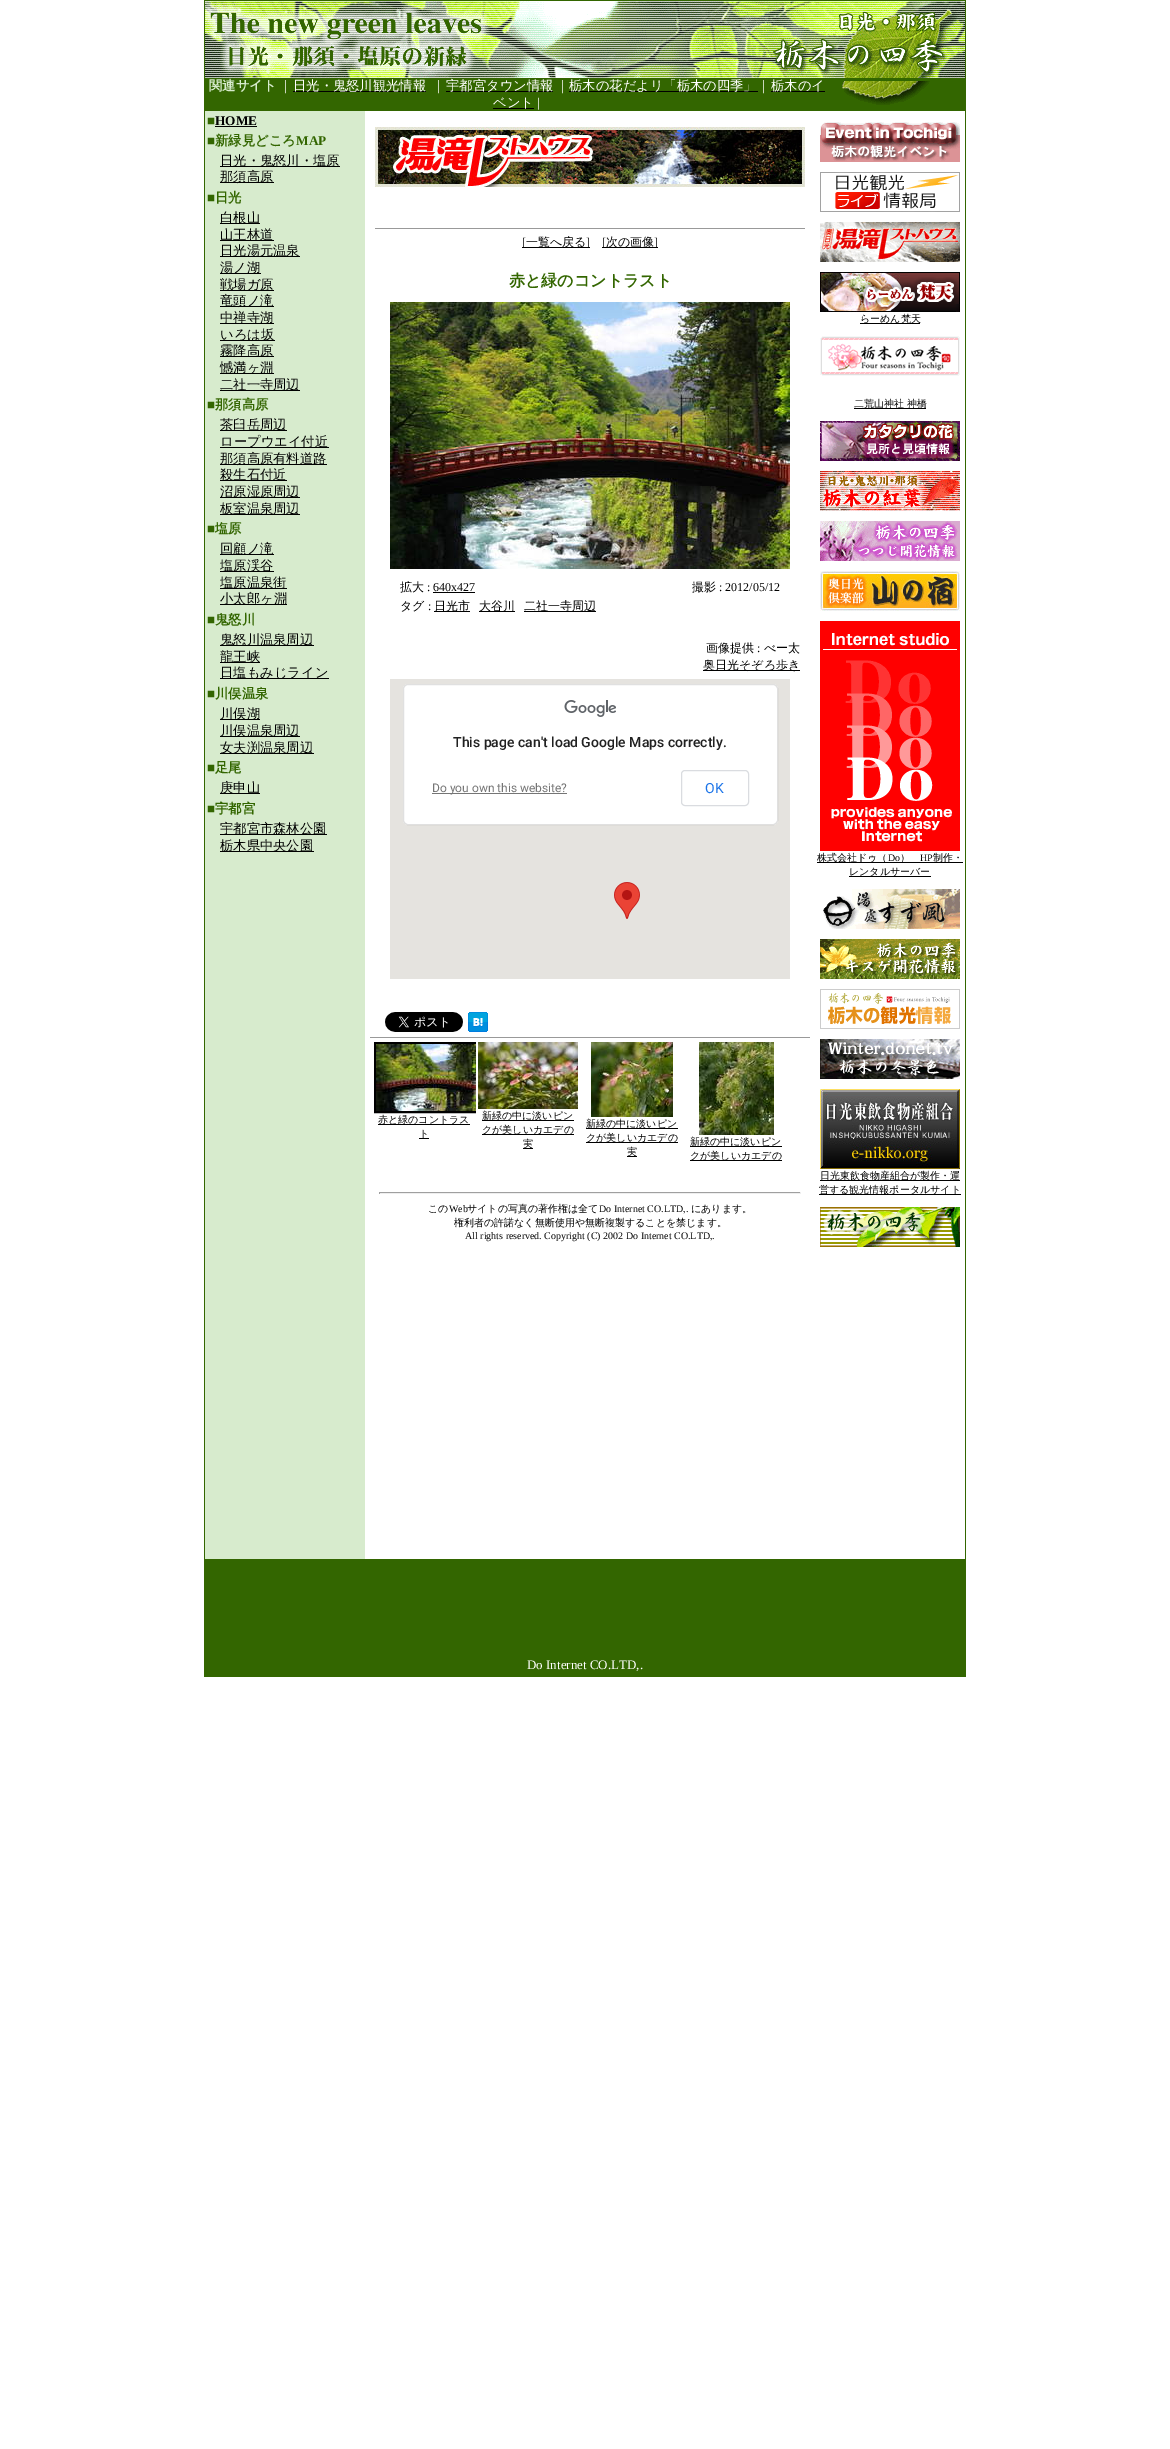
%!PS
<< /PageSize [1170 2449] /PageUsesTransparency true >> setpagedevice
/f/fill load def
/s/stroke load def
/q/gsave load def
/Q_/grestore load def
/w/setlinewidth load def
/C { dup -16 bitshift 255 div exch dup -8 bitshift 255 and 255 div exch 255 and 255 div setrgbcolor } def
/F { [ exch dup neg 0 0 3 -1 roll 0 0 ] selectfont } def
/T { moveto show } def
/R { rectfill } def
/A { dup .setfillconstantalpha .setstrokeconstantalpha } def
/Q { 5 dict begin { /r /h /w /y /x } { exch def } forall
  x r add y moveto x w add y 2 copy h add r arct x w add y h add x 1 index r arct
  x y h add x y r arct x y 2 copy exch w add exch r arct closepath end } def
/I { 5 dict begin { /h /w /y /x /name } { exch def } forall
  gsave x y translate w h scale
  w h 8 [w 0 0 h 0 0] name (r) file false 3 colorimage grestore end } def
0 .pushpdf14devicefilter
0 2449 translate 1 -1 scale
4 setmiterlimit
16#FFFFFF C
0 0 1170 2449 R
16#336600 C
204 0 762 1677 R
(1.rgb) 205 1 760 77 I
/WenQuanYiZenHei-Bold 13.3 F
16#D7EBCD C
(関連サイト) 209 90 T
/WenQuanYiZenHei-Medium 13.3 F
16#FFFFFF C
(｜) 279 90 T
16#000000 C
293 91 133 1 R
16#FFFFFF C
(日光・鬼怒川観光情報) 293 90 T
(｜) 432 90 T
16#000000 C
446 91 107 1 R
16#FFFFFF C
(宇都宮タウン情報) 446 90 T
(｜) 556 90 T
16#000000 C
569 91 189 1 R
16#FFFFFF C
(栃木の花だよリ「栃木の四季」｜) 569 90 T
16#000000 C
771 91 54 1 R
16#FFFFFF C
(栃木のイ) 771 90 T
16#000000 C
493 108 41 1 R
16#FFFFFF C
(ベント) 493 107 T
/LiberationSerif-Regular 13.3 F
(|) 537 107 T
(2.rgb) 842 81 88 24 I
365 111 600 1448 R
16#D7EBCD C
205 111 160 1448 R
/LiberationSerif-Bold 13.3 F
16#336600 C
(■) 207 125 T
16#000000 C
215 126 42 1 R
(HOME) 215 125 T
16#336600 C
(■) 207 145 T
/WenQuanYiZenHei-Bold 13.3 F
(新緑見どころ) 215 145 T
/LiberationSerif-Bold 13.3 F
(MAP) 296 145 T
16#000000 C
220 166 120 1 R
/WenQuanYiZenHei-Medium 13.3 F
(日光・鬼怒川・塩原) 220 165 T
220 182 54 1 R
(那須高原) 220 181 T
/LiberationSerif-Bold 13.3 F
16#336600 C
(■) 207 202 T
/WenQuanYiZenHei-Bold 13.3 F
(日光) 215 202 T
16#000000 C
220 223 40 1 R
/WenQuanYiZenHei-Medium 13.3 F
(白根山) 220 222 T
220 240 54 1 R
(山王林道) 220 239 T
220 256 80 1 R
(日光湯元温泉) 220 255 T
220 273 41 1 R
(湯ノ湖) 220 272 T
220 290 54 1 R
(戦場ガ原) 220 289 T
220 306 54 1 R
(竜頭ノ滝) 220 305 T
220 323 54 1 R
(中禅寺湖) 220 322 T
220 340 55 1 R
(いろは坂) 220 339 T
220 356 54 1 R
(霧降高原) 220 355 T
220 373 54 1 R
(憾満ヶ淵) 220 372 T
220 390 80 1 R
(二社一寺周辺) 220 389 T
/LiberationSerif-Bold 13.3 F
16#336600 C
(■) 207 409 T
/WenQuanYiZenHei-Bold 13.3 F
(那須高原) 215 409 T
16#000000 C
220 430 67 1 R
/WenQuanYiZenHei-Medium 13.3 F
(茶臼岳周辺) 220 429 T
220 447 109 1 R
(ロープウエイ付近) 220 446 T
220 464 107 1 R
(那須高原有料道路) 220 463 T
220 480 67 1 R
(殺生石付近) 220 479 T
220 497 80 1 R
(沼原湿原周辺) 220 496 T
220 514 80 1 R
(板室温泉周辺) 220 513 T
/LiberationSerif-Bold 13.3 F
16#336600 C
(■) 207 533 T
/WenQuanYiZenHei-Bold 13.3 F
(塩原) 215 533 T
16#000000 C
220 554 54 1 R
/WenQuanYiZenHei-Medium 13.3 F
(回顧ノ滝) 220 553 T
220 571 54 1 R
(塩原渓谷) 220 570 T
220 588 67 1 R
(塩原温泉街) 220 587 T
220 604 67 1 R
(小太郎ヶ淵) 220 603 T
/LiberationSerif-Bold 13.3 F
16#336600 C
(■) 207 624 T
/WenQuanYiZenHei-Bold 13.3 F
(鬼怒川) 215 624 T
16#000000 C
220 645 94 1 R
/WenQuanYiZenHei-Medium 13.3 F
(鬼怒川温泉周辺) 220 644 T
220 662 40 1 R
(龍王峡) 220 661 T
220 678 109 1 R
(日塩もみじライン) 220 677 T
/LiberationSerif-Bold 13.3 F
16#336600 C
(■) 207 698 T
/WenQuanYiZenHei-Bold 13.3 F
(川俣温泉) 215 698 T
16#000000 C
220 719 40 1 R
/WenQuanYiZenHei-Medium 13.3 F
(川俣湖) 220 718 T
220 736 80 1 R
(川俣温泉周辺) 220 735 T
220 753 94 1 R
(女夫渕温泉周辺) 220 752 T
/LiberationSerif-Bold 13.3 F
16#336600 C
(■) 207 772 T
/WenQuanYiZenHei-Bold 13.3 F
(足尾) 215 772 T
16#000000 C
220 793 40 1 R
/WenQuanYiZenHei-Medium 13.3 F
(庚申山) 220 792 T
/LiberationSerif-Bold 13.3 F
16#336600 C
(■) 207 813 T
/WenQuanYiZenHei-Bold 13.3 F
(宇都宮) 215 813 T
16#000000 C
220 834 107 1 R
/WenQuanYiZenHei-Medium 13.3 F
(宇都宮市森林公園) 220 833 T
220 851 94 1 R
(栃木県中央公園) 220 850 T
(3.rgb) 375 127 430 60 I
16#999999 C
375 228 430 1 R
16#000000 C
522 247 68 1 R
/LiberationSerif-Regular 12 F
([) 522 246 T
/WenQuanYiZenHei-Medium 12 F
(一覧へ戻る) 526 246 T
/LiberationSerif-Regular 12 F
(]) 586 246 T
602 247 56 1 R
([) 602 246 T
/WenQuanYiZenHei-Medium 12 F
(次の画像) 606 246 T
/LiberationSerif-Regular 12 F
(]) 654 246 T
/WenQuanYiZenHei-Bold 16 F
16#336600 C
(赤と緑のコントラスト) 509 286 T
(4.rgb) 390 302 400 267 I
/WenQuanYiZenHei-Medium 12 F
16#000000 C
(拡大) 400 591 T
/LiberationSerif-Regular 12 F
(: 640x427) 427 591 T
433 592 42 1 R
/WenQuanYiZenHei-Medium 12 F
(撮影) 692 591 T
/LiberationSerif-Regular 12 F
(: 2012/05/12) 719 591 T
/WenQuanYiZenHei-Medium 12 F
(タグ) 400 610 T
/LiberationSerif-Regular 12 F
(:) 428 610 T
434 611 36 1 R
/WenQuanYiZenHei-Medium 12 F
(日光市) 434 610 T
479 611 36 1 R
(大谷川) 479 610 T
524 611 72 1 R
(二社一寺周辺) 524 610 T
(画像提供) 706 652 T
/LiberationSerif-Regular 12 F
(:) 757 652 T
/WenQuanYiZenHei-Medium 12 F
(べー太) 764 652 T
703 670 97 1 R
(奥日光そぞろ歩き) 703 669 T
16#E5E3DF C
390 679 400 300 R
(5.rgb) 614 882 26 37 I
16#FFFFFF C
403 684 375 141 5 Q f
0.12 A
16#000000 C
403.5 684.5 374 140 4.5 Q s
1 A
(6.rgb) 564 700 52 17 I
/Roboto-Medium 14 F
16#212121 C
(This page can't load Google Maps correctly.) 453 747 T
16#757575 C
432 793 135 1 R
/Roboto-Regular 12 F
(Do you own this website?) 432 792 T
16#DADCE0 C
681.5 770.5 67 35 3.5 Q s
/Roboto-Regular 14 F
16#1A73E8 C
(OK) 705 793 T
(7.rgb) 385 1012 78 20 I
(8.rgb) 468 1012 20 20 I
16#999999 C
370 1037 440 1 R
q
372 1040 104 124 rectclip
16#000000 C
2 w
375 1043 102 69 rectstroke
Q_
(9.rgb) 376 1044 100 67 I
16#000000 C
378 1124 92 1 R
/WenQuanYiZenHei-Medium 10 F
(赤と緑のコントラス) 378 1123 T
419 1138 10 1 R
(ト) 419 1137 T
(10.rgb) 478 1042 100 67 I
482 1120 92 1 R
(新緑の中に淡いピン) 482 1119 T
482 1134 92 1 R
(クが美しいカエデの) 482 1133 T
523 1148 10 1 R
(実) 523 1147 T
(11.rgb) 591 1042 82 75 I
586 1128 92 1 R
(新緑の中に淡いピン) 586 1127 T
586 1142 92 1 R
(クが美しいカエデの) 586 1141 T
627 1156 10 1 R
(実) 627 1155 T
(12.rgb) 699 1042 75 93 I
690 1146 92 1 R
(新緑の中に淡いピン) 690 1145 T
690 1160 92 1 R
(クが美しいカエデの) 690 1159 T
16#9F9F9F C
379 1192 422 1 R
16#EEEEEE C
800 1192 1 2 R
379 1193 422 1 R
16#9F9F9F C
379 1192 1 2 R
16#000000 C
(この) 428 1212 T
/LiberationSerif-Regular 10 F
(Web) 449 1212 T
/WenQuanYiZenHei-Medium 10 F
(サイトの写真の著作権は全て) 467 1212 T
/LiberationSerif-Regular 10 F
(Do Internet CO.LTD,.) 599 1212 T
/WenQuanYiZenHei-Medium 10 F
(にあります。) 691 1212 T
(権利者の許諾なく無断使用や無断複製することを禁じます。) 454 1226 T
/LiberationSerif-Regular 10 F
(All rights reserved. Copyright \(C\) 2002 Do Internet CO.LTD,.) 465 1239 T
(13.rgb) 820 122 140 40 I
(14.rgb) 820 172 140 40 I
(15.rgb) 820 222 140 40 I
(16.rgb) 820 272 140 40 I
860 323 60 1 R
/WenQuanYiZenHei-Medium 10 F
(らーめん梵天) 860 322 T
(17.rgb) 820 336 140 40 I
854 408 72 1 R
(二荒山神社 神橋) 854 407 T
(18.rgb) 820 421 140 40 I
(19.rgb) 820 471 140 40 I
(20.rgb) 820 521 140 40 I
(21.rgb) 820 571 140 40 I
(22.rgb) 820 621 140 230 I
817 862 146 1 R
(株式会社ドゥ（) 817 861 T
/LiberationSerif-Regular 10 F
(Do) 888 861 T
/WenQuanYiZenHei-Medium 10 F
(）) 900 861 T
/LiberationSerif-Regular 10 F
(HP) 920 861 T
/WenQuanYiZenHei-Medium 10 F
(制作・) 933 861 T
849 876 82 1 R
(レンタルサーバー) 849 875 T
(23.rgb) 823 889 137 40 I
(24.rgb) 820 939 140 40 I
(25.rgb) 820 989 140 40 I
(26.rgb) 820 1039 140 40 I
(27.rgb) 820 1089 140 80 I
820 1180 140 1 R
(日光東飲食物産組合が製作・運) 820 1179 T
819 1194 142 1 R
(営する観光情報ポータルサイト) 819 1193 T
(28.rgb) 820 1207 140 40 I
/LiberationSerif-Regular 13 F
16#FFFFFF C
(Do Internet CO.LTD,.) 527 1669 T
.poppdf14devicefilter showpage
